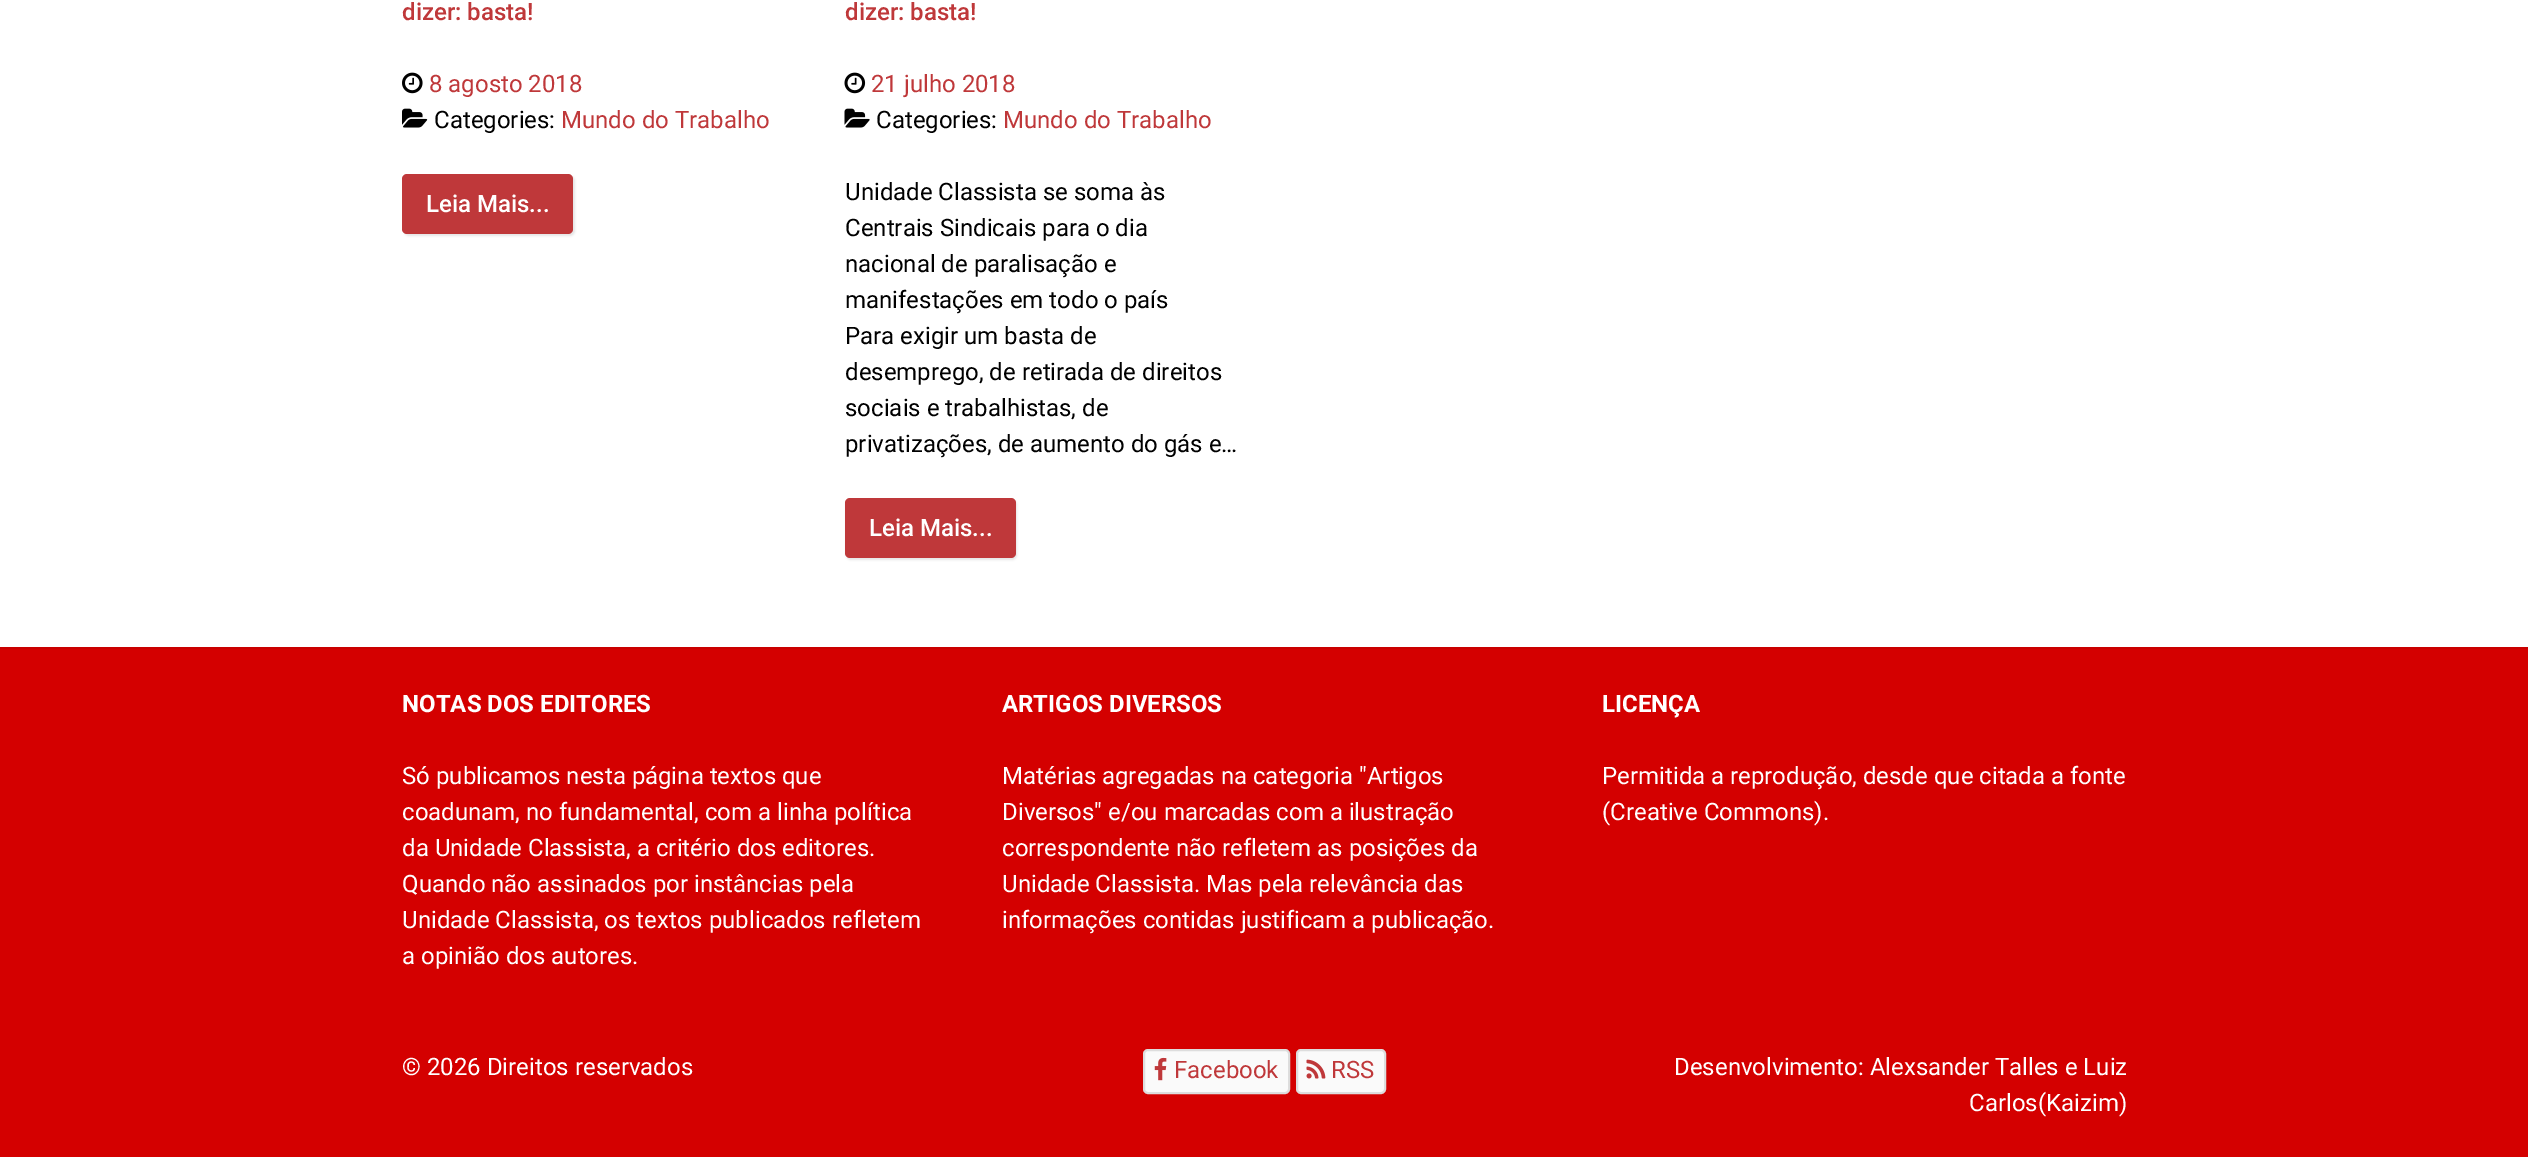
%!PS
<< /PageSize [2528 1157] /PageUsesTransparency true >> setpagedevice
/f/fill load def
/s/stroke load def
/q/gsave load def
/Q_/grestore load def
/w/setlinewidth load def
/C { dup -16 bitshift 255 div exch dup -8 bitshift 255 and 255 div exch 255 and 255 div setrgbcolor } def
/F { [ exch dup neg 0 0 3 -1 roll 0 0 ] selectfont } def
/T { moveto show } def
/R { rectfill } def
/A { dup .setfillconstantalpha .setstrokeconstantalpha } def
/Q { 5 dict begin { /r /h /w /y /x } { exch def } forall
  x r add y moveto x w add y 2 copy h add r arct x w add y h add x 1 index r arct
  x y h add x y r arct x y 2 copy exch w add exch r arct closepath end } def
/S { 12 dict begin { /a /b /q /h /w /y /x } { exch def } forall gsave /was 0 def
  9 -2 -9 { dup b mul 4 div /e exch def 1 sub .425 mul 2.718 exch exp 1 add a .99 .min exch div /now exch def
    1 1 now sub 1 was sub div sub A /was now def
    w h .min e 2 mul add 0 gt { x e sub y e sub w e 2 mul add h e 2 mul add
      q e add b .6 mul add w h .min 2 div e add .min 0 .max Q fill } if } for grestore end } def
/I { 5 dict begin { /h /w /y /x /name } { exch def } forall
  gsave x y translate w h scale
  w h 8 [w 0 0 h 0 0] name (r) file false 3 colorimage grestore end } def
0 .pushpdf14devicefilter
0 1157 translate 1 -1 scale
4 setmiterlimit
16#FFFFFF C
0 0 2528 1157 R
/Roboto-Medium 24 F
16#BF383A C
(dizer: basta!) 402 20 T
(1.rgb) 402 72 21 22 I
/Roboto-Regular 24 F
(8 agosto 2018) 429 92 T
(2.rgb) 402 108 26 20 I
16#000000 C
(Categories:) 434 128 T
16#BF383A C
(Mundo do Trabalho) 561 128 T
16#000000 C
404 176 171 60 5 1 .1 S
16#BF383A C
402 174 171 60 5 Q f
/Roboto-Medium 24 F
16#FFFFFF C
(Leia Mais...) 426 212 T
16#BF383A C
(dizer: basta!) 845 20 T
(3.rgb) 844 72 22 22 I
/Roboto-Regular 24 F
(21 julho 2018) 871 92 T
(4.rgb) 844 108 26 20 I
16#000000 C
(Categories:) 876 128 T
16#BF383A C
(Mundo do Trabalho) 1003 128 T
16#000000 C
(Unidade Classista se soma às) 845 200 T
(Centrais Sindicais para o dia) 845 236 T
(nacional de paralisação e) 845 272 T
(manifestações em todo o país) 845 308 T
(Para exigir um basta de) 845 344 T
(desemprego, de retirada de direitos) 845 380 T
(sociais e trabalhistas, de) 845 416 T
(privatizações, de aumento do gás e…) 845 452 T
846 500 171 60 5 1 .1 S
16#BF383A C
845 498 171 60 5 Q f
/Roboto-Medium 24 F
16#FFFFFF C
(Leia Mais...) 869 536 T
16#D40000 C
0 649 2528 508 R
16#C90000 C
0 647 2528 2 R
/Roboto-Bold 24 F
16#FFFFFF C
(NOTAS DOS EDITORES) 402 712 T
/Roboto-Regular 24 F
(Só publicamos nesta página textos que) 402 784 T
(coadunam, no fundamental, com a linha política) 402 820 T
(da Unidade Classista, a critério dos editores.) 402 856 T
(Quando não assinados por instâncias pela) 402 892 T
(Unidade Classista, os textos publicados refletem) 402 928 T
(a opinião dos autores.) 402 964 T
/Roboto-Bold 24 F
(ARTIGOS DIVERSOS) 1002 712 T
/Roboto-Regular 24 F
(Matérias agregadas na categoria "Artigos) 1002 784 T
(Diversos" e/ou marcadas com a ilustração) 1002 820 T
(correspondente não refletem as posições da) 1002 856 T
(Unidade Classista. Mas pela relevância das) 1002 892 T
(informações contidas justificam a publicação.) 1002 928 T
/Roboto-Bold 24 F
(LICENÇA) 1602 712 T
/Roboto-Regular 24 F
(Permitida a reprodução, desde que citada a fonte) 1602 784 T
(\(Creative Commons\).) 1602 820 T
(© 2026 Direitos reservados) 402 1075 T
16#FAFAFA C
1144 1050 145 43 4 Q q f Q_
16#DDDDDD C
2 w
s
(5.rgb) 1154 1057 13 24 I
16#BF383A C
(Facebook) 1174 1078 T
16#FAFAFA C
1297 1050 88 43 4 Q q f Q_
16#DDDDDD C
s
(6.rgb) 1306 1059 20 20 I
16#BF383A C
(RSS) 1331 1078 T
16#FFFFFF C
(Desenvolvimento: Alexsander Talles e Luiz) 1674 1075 T
(Carlos\(Kaizim\)) 1969 1111 T
.poppdf14devicefilter showpage
